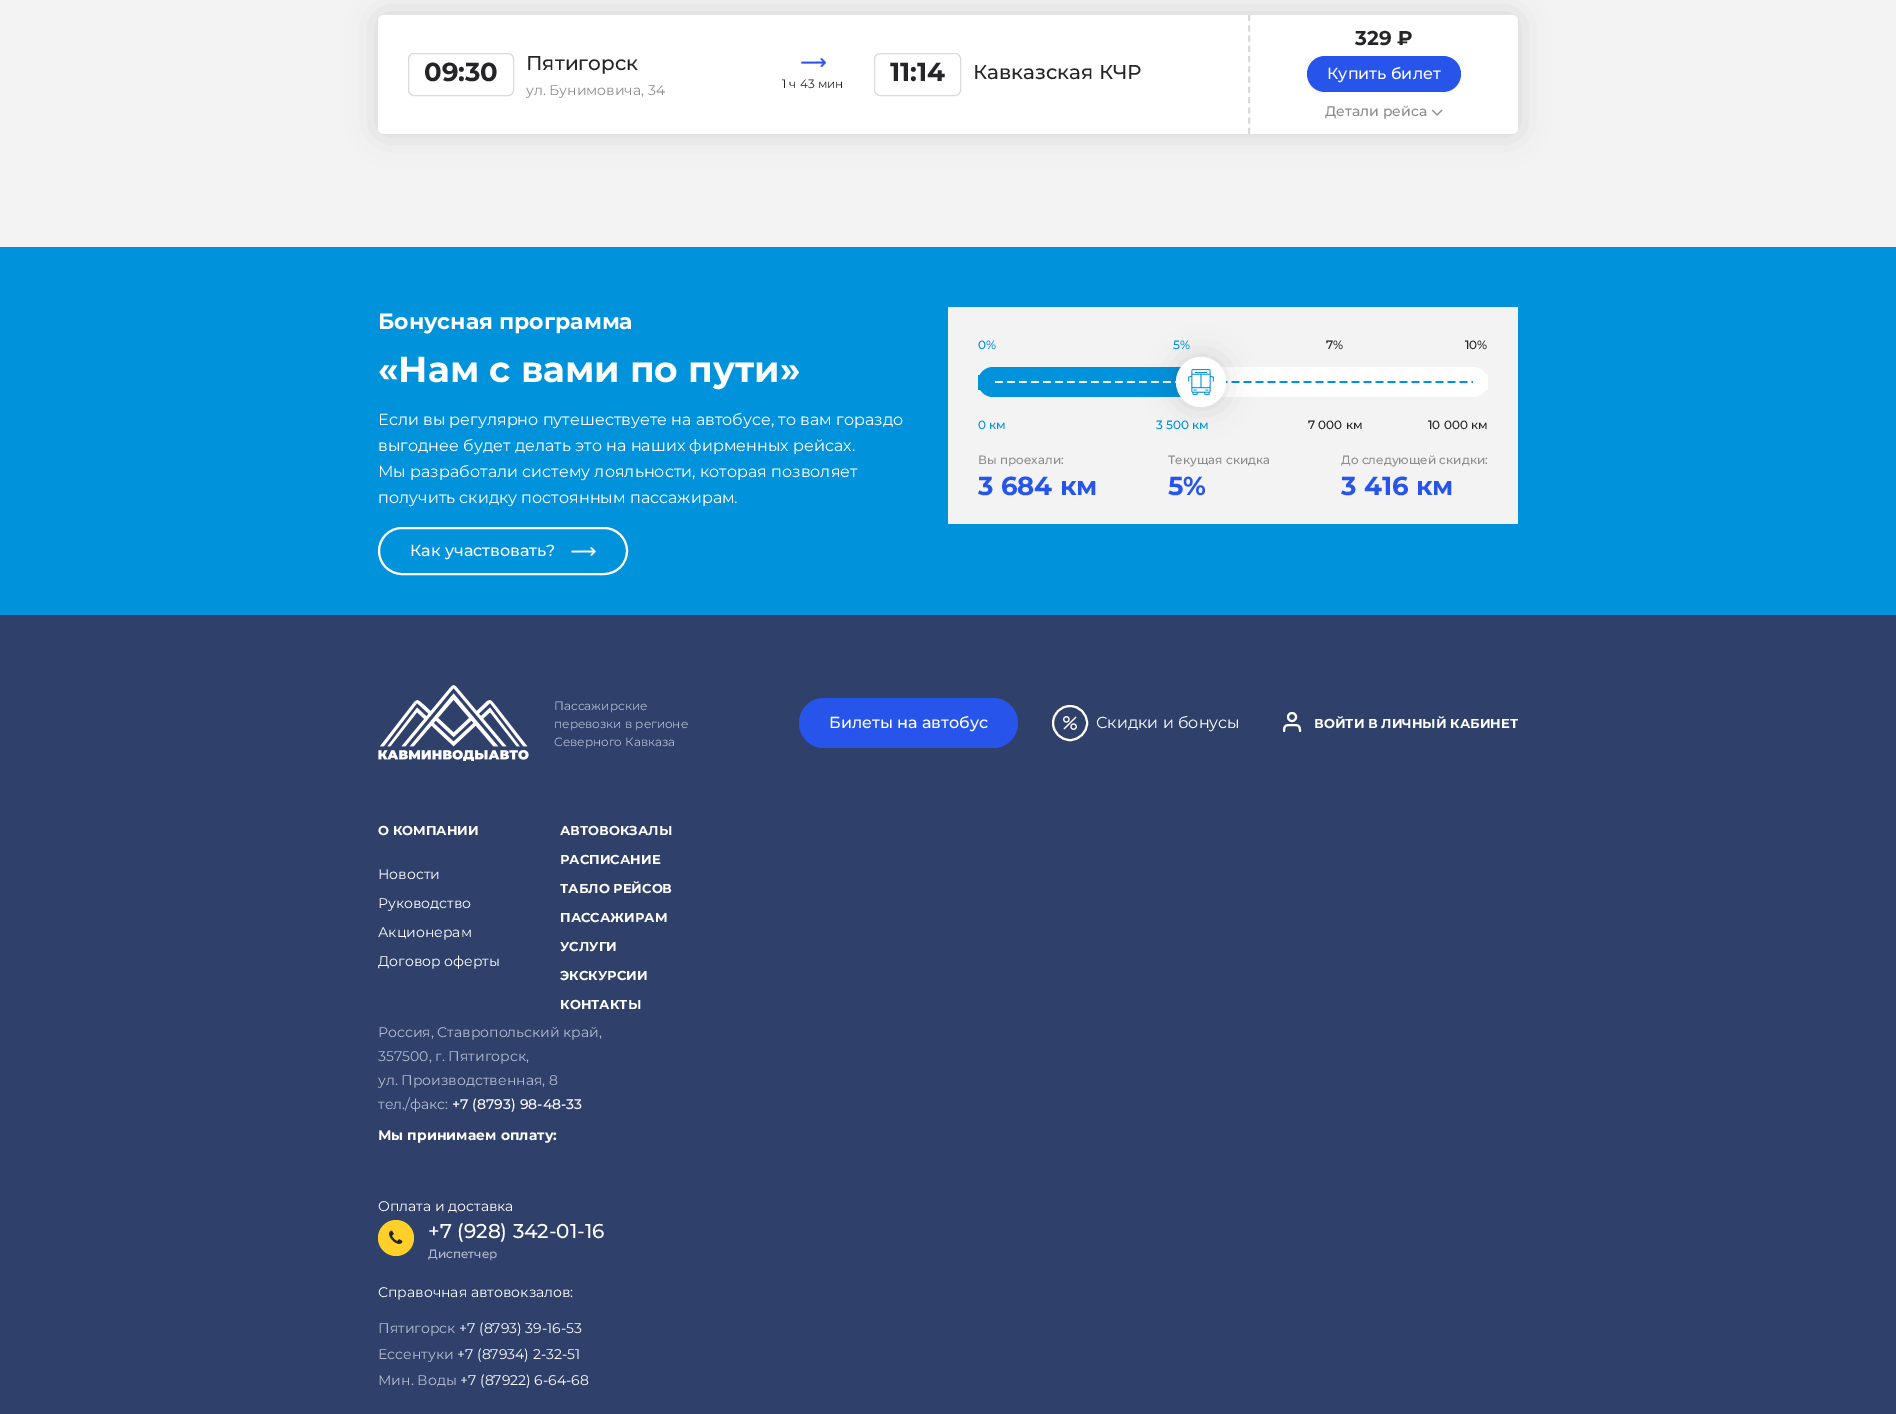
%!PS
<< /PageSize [1896 1414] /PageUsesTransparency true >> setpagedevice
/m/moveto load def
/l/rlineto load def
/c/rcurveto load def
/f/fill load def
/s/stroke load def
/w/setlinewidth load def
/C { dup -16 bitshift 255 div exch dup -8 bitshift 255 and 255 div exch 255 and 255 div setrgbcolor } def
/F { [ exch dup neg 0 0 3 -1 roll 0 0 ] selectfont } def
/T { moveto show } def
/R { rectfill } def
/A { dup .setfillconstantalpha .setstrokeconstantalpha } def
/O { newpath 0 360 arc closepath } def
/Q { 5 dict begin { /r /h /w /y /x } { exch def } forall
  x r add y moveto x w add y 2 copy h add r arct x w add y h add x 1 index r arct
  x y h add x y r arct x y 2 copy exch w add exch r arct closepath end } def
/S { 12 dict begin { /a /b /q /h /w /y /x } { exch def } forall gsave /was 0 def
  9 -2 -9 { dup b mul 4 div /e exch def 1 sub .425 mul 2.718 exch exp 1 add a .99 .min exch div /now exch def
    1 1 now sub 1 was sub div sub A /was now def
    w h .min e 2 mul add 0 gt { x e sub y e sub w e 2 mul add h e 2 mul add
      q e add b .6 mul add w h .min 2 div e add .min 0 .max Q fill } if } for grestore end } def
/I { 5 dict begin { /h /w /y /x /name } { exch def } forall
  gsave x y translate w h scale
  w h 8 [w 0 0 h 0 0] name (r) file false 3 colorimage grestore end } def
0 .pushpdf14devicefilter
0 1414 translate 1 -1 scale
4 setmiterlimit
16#F3F3F3 C
0 0 1896 1414 R
16#000000 C
378 15 1140 119 6 15 .13 S
16#FFFFFF C
378 15 1140 119 6 Q f
16#DADADA C
408.5 53.5 105 42 5.5 Q s
/Montserrat-Bold 26 F
16#252527 C
(09:30) 424 81 T
/Montserrat-Medium 20 F
(Пятигорск) 526 70 T
/Montserrat-Regular 14 F
16#8D8D8D C
(ул. Бунимовича, 34) 526 95 T
16#DADADA C
874.5 53.5 86 42 5.5 Q s
/Montserrat-Bold 26 F
16#252527 C
(11:14) 890 81 T
/Montserrat-Medium 20 F
(Кавказская КЧР) 973 79 T
(1.rgb) 801 58 25 9 I
/Montserrat-Regular 12 F
(1 ч 43 мин) 782 88 T
16#DADADA C
2 w
[6 4.27] 0 setdash
1249 15 m 0 119 l s
/Montserrat-Bold 20 F
16#252527 C
(329 ₽) 1355 45 T
16#2754EB C
1307 56 154 36 18 Q f
/Montserrat-Medium 16 F
16#FFFFFF C
(Купить билет) 1327 79 T
/Montserrat-Medium 14 F
16#8D8D8D C
(Детали рейса) 1325 116 T
(2.rgb) 1431 109 12 7 I
16#0092DB C
0 247 1896 368 R
/Montserrat-Bold 22 F
16#FFFFFF C
(Бонусная программа) 378 329 T
/Montserrat-Bold 36 F
(«Нам с вами по пути») 378 382 T
/Montserrat-Regular 16 F
(Если вы регулярно путешествуете на автобусе, то вам гораздо) 378 425 T
(выгоднее будет делать это на наших фирменных рейсах.) 378 451 T
(Мы разработали систему лояльности, которая позволяет) 378 477 T
(получить скидку постоянным пассажирам.) 378 503 T
(3.rgb) 571 547 25 9 I
[] 0 setdash
379 528 248 46 23 Q s
/Montserrat-Medium 16 F
(Как участвовать?) 410 556 T
16#F3F3F3 C
948 307 570 217 R
16#FFFFFF C
978 367 510 30 15 Q f
(4.rgb) 1225 381 248 2 I
1486 375 2 15 R
16#0092DB C
978 367 223 30 15 Q f
(5.rgb) 994 381 183 2 I
978 375 3 15 R
16#000000 C
1176 357 50 50 25 15 .13 S
16#FFFFFF C
1201 382 25 O f
(6.rgb) 1188 369 26 26 I
/Montserrat-Medium 12 F
16#0092DB C
(0%) 978 349 T
(5%) 1173 349 T
16#252527 C
(7%) 1326 349 T
(10%) 1465 349 T
16#0092DB C
(0 км) 978 429 T
(3 500 км) 1156 429 T
16#252527 C
(7 000 км) 1308 429 T
(10 000 км) 1428 429 T
16#8D8D8D C
(Вы проехали:) 978 464 T
/Montserrat-Bold 26 F
16#2754EB C
(3 684 км) 978 495 T
/Montserrat-Medium 12 F
16#8D8D8D C
(Текущая скидка) 1168 464 T
/Montserrat-Bold 26 F
16#2754EB C
(5%) 1168 495 T
/Montserrat-Medium 12 F
16#8D8D8D C
(До следующей скидки:) 1341 464 T
/Montserrat-Bold 26 F
16#2754EB C
(3 416 км) 1341 495 T
16#2F406B C
0 615 1896 799 R
(7.rgb) 378 685 151 76 I
/Montserrat-Regular 12 F
16#B4BBCE C
(Пассажирские) 554 710 T
(перевозки в регионе) 554 728 T
(Северного Кавказа) 554 746 T
16#2754EB C
799 698 219 50 25 Q f
/Montserrat-Medium 16 F
16#FFFFFF C
(Билеты на автобус) 829 728 T
(8.rgb) 1063 716 14 14 I
1070 723 17 O s
/Montserrat-Regular 16 F
(Скидки и бонусы) 1096 728 T
1 setlinecap
1 setlinejoin
1300 731 m 0 -6.5 -2.5 -6 -8 -6 c -5.5 0 -8 -.5 -8 6 c s
0 setlinecap
0 setlinejoin
1292 717 4 O s
/Montserrat-Bold 13 F
(ВОЙТИ В ЛИЧНЫЙ КАБИНЕТ) 1314 728 T
(О КОМПАНИИ) 378 835 T
/Montserrat-Regular 14 F
(Новости) 378 879 T
(Руководство) 378 908 T
(Акционерам) 378 937 T
(Договор оферты) 378 966 T
/Montserrat-Bold 13 F
(АВТОВОКЗАЛЫ) 560 835 T
(РАСПИСАНИЕ) 560 864 T
(ТАБЛО РЕЙСОВ) 560 893 T
(ПАССАЖИРАМ) 560 922 T
(УСЛУГИ) 560 951 T
(ЭКСКУРСИИ) 560 980 T
(КОНТАКТЫ) 560 1009 T
/Montserrat-Regular 14 F
16#B4BBCE C
(Россия, Ставропольский край,) 378 1037 T
(357500, г. Пятигорск,) 378 1061 T
(ул. Производственная, 8) 378 1085 T
(тел./факс:) 378 1109 T
/Montserrat-Medium 14 F
16#FFFFFF C
(+7 \(8793\) 98-48-33) 452 1109 T
/Montserrat-Bold 14 F
(Мы принимаем оплату:) 378 1140 T
/Montserrat-Regular 14 F
(Оплата и доставка) 378 1211 T
16#FFCF2A C
396 1238 18 O f
(9.rgb) 389 1230 14 14 I
/Montserrat-Medium 20 F
16#FFFFFF C
(+7 \(928\) 342-01-16) 428 1238 T
/Montserrat-Medium 12 F
16#B4BBCE C
(Диспетчер) 428 1258 T
/Montserrat-Regular 14 F
16#FFFFFF C
(Справочная автовокзалов:) 378 1297 T
16#B4BBCE C
(Пятигорск) 378 1333 T
16#FFFFFF C
(+7 \(8793\) 39-16-53) 459 1333 T
16#B4BBCE C
(Ессентуки) 378 1359 T
16#FFFFFF C
(+7 \(87934\) 2-32-51) 457 1359 T
16#B4BBCE C
(Мин. Воды) 378 1385 T
16#FFFFFF C
(+7 \(87922\) 6-64-68) 460 1385 T
.poppdf14devicefilter showpage
